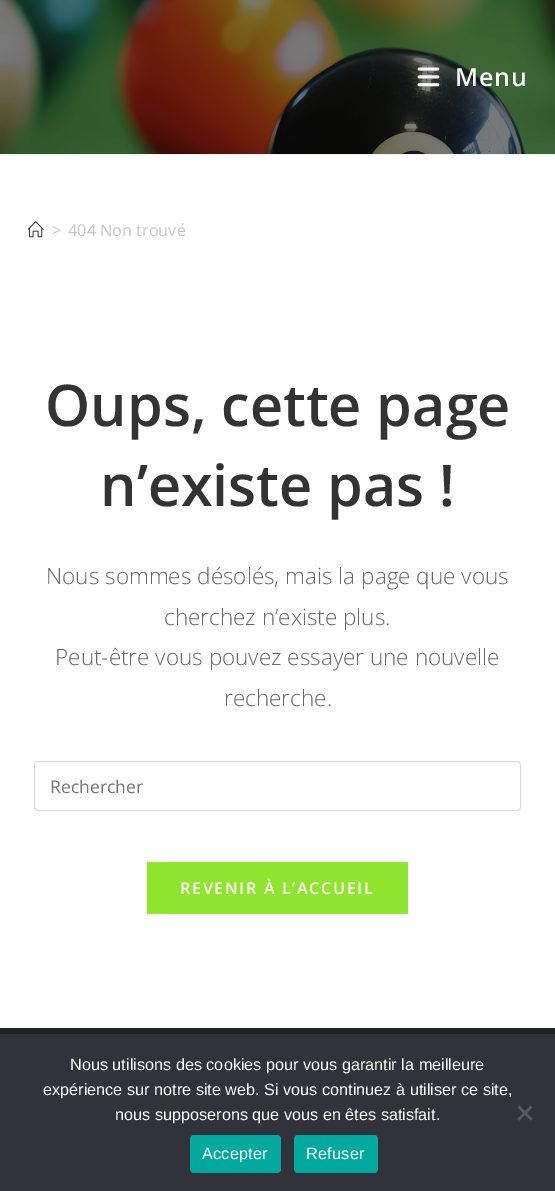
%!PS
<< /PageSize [555 1191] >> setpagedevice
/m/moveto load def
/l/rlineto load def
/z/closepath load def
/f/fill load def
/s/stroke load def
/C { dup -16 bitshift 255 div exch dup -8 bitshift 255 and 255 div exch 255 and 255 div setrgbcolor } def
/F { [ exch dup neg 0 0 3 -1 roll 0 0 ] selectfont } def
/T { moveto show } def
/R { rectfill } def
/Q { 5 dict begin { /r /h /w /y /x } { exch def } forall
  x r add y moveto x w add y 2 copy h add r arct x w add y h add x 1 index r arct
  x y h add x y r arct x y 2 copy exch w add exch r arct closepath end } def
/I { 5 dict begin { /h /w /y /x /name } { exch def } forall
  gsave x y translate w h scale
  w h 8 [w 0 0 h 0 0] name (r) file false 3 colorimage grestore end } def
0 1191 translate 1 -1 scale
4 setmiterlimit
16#FFFFFF C
0 0 555 1191 R
(1.rgb) 0 0 555 154 I
16#F1F1F1 C
0 154 555 1 R
(2.rgb) 417 67 23 20 I
/OpenSans-SemiBold 25 F
16#F7F7F7 C
455 86 m 1 0 (Menu) ashow
(3.rgb) 28 221 16 17 I
/OpenSans-Regular 16.25 F
16#C6C6C6 C
(>) 52 236 T
(404 Non trouvé) 68 236 T
/OpenSans-SemiBold 57.5 F
16#333333 C
(Oups, cette page) 45 426 T
(n’existe pas !) 100 506 T
/OpenSans-Light 22.5 F
16#686868 C
(Nous sommes désolés, mais la page que vous) 46 584 T
(cherchez n’existe plus.) 164 625 T
(Peut-être vous pouvez essayer une nouvelle) 55 665 T
(recherche.) 224 706 T
16#DDDDDD C
34.5 761.5 486 49 3.5 Q s
/OpenSans-Regular 17.5 F
16#757575 C
(Rechercher) 50 793 T
16#8FE52D C
147 862 261 52 R
/OpenSans-SemiBold 16.25 F
16#FFFFFF C
180 894 m 1.6 0 (REVENIR À L’ACCUEIL) ashow
16#222222 C
0 1028 555 6 R
16#32323A C
0 1034 555 157 R
/LiberationSans-Regular 16.25 F
16#FFFFFF C
(Nous utilisons des cookies pour vous garantir la meilleure) 70 1070 T
(expérience sur notre site web. Si vous continuez à utiliser ce site,) 43 1095 T
(nous supposerons que vous en êtes satisfait.) 115 1120 T
16#59595D C
530.5 1105.5 m 2 2 l -13 13 l -2 -1.5 l z f
517.5 1107.5 m 2 -2 l 13 13.5 l -2 1.5 l z f
16#00A99D C
190 1135 91 38 4 Q f
16#FFFFFF C
202 1159 m .25 0 (Accepter) ashow
16#00A99D C
294 1135 84 38 4 Q f
16#FFFFFF C
306 1159 m .25 0 (Refuser) ashow
showpage
